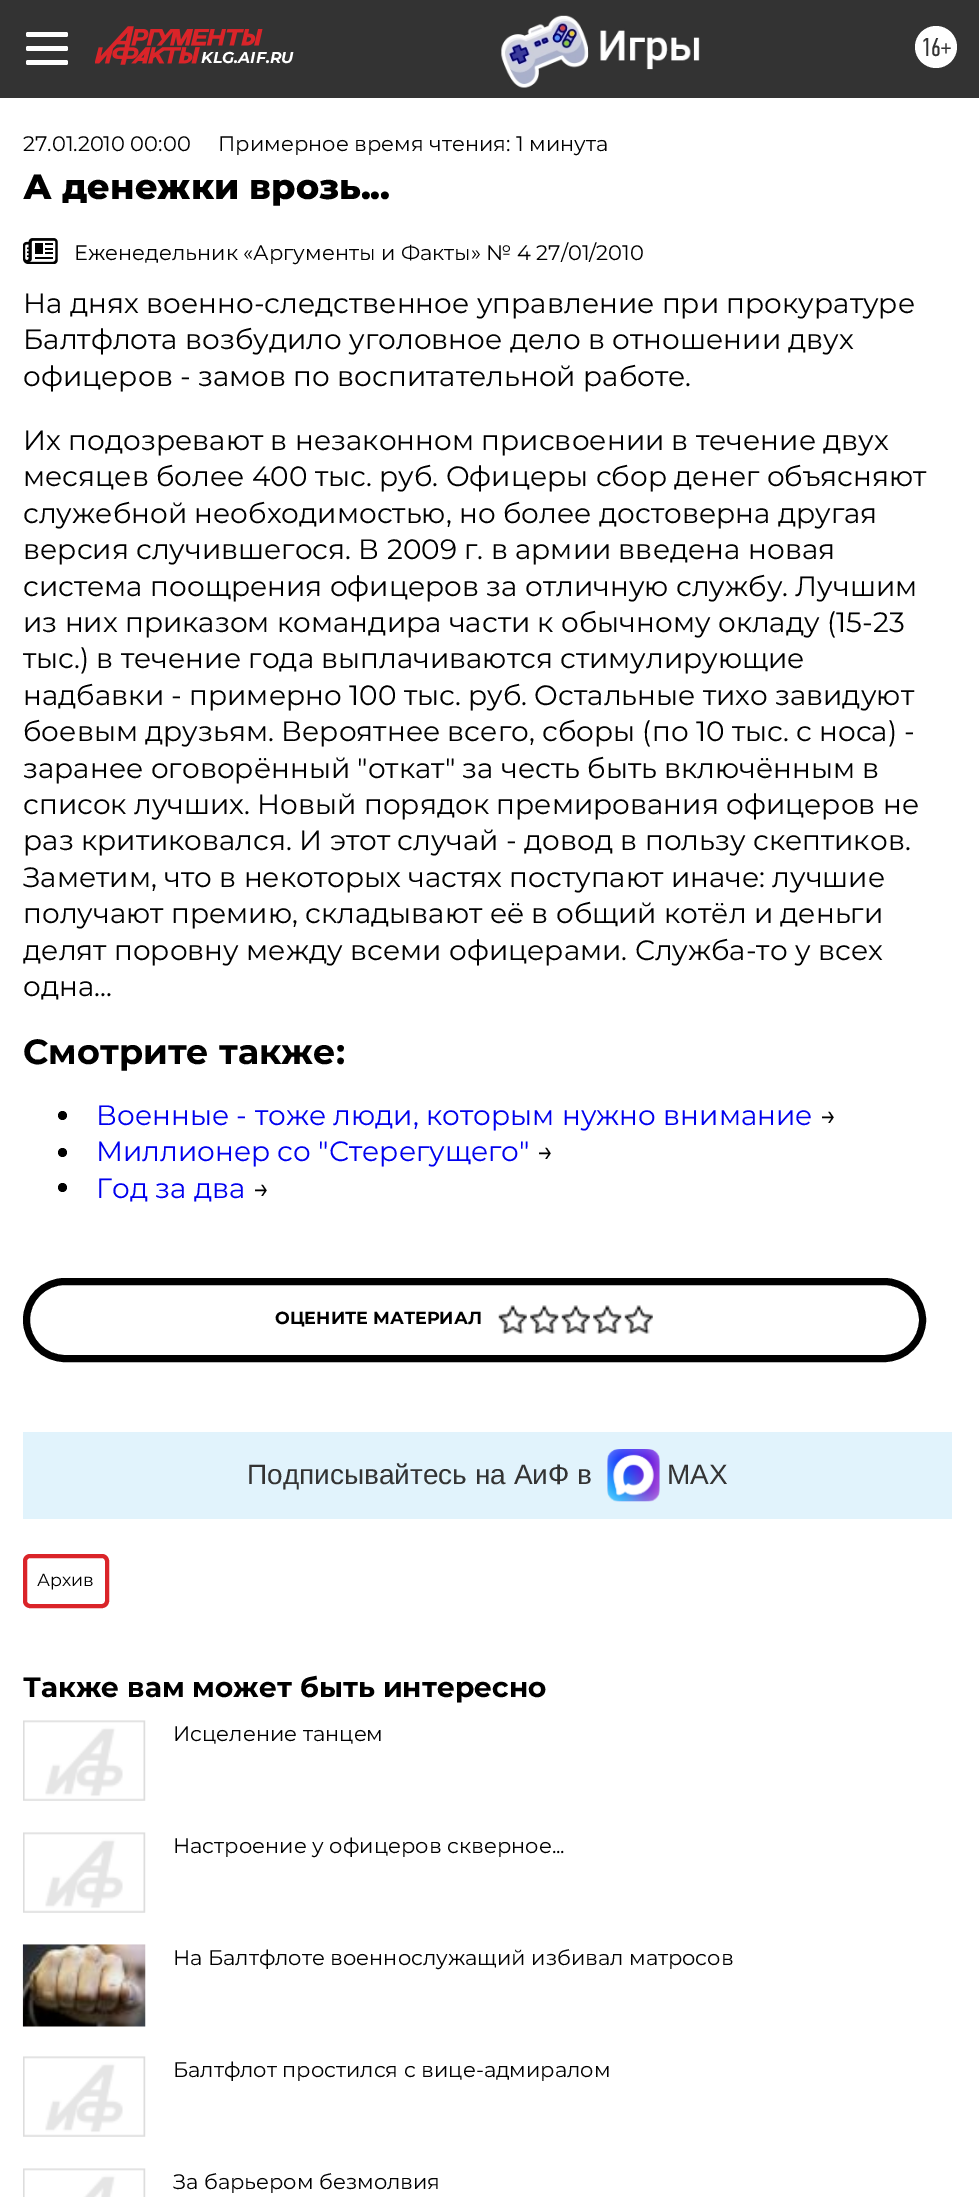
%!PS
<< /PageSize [979 2197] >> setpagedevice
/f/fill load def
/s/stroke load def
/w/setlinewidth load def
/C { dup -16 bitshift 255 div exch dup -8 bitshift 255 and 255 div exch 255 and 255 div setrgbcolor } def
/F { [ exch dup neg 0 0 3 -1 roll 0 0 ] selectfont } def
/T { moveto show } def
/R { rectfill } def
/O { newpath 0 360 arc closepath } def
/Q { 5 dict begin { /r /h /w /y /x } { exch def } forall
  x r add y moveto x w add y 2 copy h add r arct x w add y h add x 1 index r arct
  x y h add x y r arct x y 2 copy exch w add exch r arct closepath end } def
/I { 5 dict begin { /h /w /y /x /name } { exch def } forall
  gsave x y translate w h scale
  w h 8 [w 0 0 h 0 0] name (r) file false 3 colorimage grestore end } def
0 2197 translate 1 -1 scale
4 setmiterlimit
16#FFFFFF C
0 0 979 2197 R
16#333333 C
0 0 979 98 R
16#FFFFFF C
26 32 42 5 2 Q f
26 46 42 5 2 Q f
26 60 42 5 2 Q f
(1.rgb) 95 26 168 39 I
/Montserrat-BoldItalic 15.75 F
(KLG.AIF.RU) 201 63 T
(2.rgb) 501 15 199 73 I
936 47 21 O f
/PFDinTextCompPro-Regular 26 F
16#333333 C
(16+) 921 56 T
/Montserrat-Regular 21 F
16#000000 C
(27.01.2010 00:00) 23 151 T
(Примерное время чтения: 1 минута) 218 151 T
/Montserrat-ExtraBold 35 F
(А денежки врозь...) 23 199 T
(3.rgb) 23 238 35 26 I
/Montserrat-Regular 21 F
(Еженедельник «Аргументы и Факты» № 4 27/01/2010) 74 260 T
/Montserrat-Regular 28 F
(На днях военно-следственное управление при прокуратуре) 23 313 T
(Балтфлота возбудило уголовное дело в отношении двух) 23 349 T
(офицеров - замов по воспитательной работе.) 23 386 T
(Их подозревают в незаконном присвоении в течение двух) 23 450 T
(месяцев более 400 тыс. руб. Офицеры сбор денег объясняют) 23 486 T
(служебной необходимостью, но более достоверна другая) 23 523 T
(версия случившегося. В 2009 г. в армии введена новая) 23 559 T
(система поощрения офицеров за отличную службу. Лучшим) 23 596 T
(из них приказом командира части к обычному окладу \(15-23) 23 632 T
(тыс.\) в течение года выплачиваются стимулирующие) 23 668 T
(надбавки - примерно 100 тыс. руб. Остальные тихо завидуют) 23 705 T
(боевым друзьям. Вероятнее всего, сборы \(по 10 тыс. с носа\) -) 23 741 T
(заранее оговорённый "откат" за честь быть включённым в) 23 778 T
(список лучших. Новый порядок премирования офицеров не) 23 814 T
(раз критиковался. И этот случай - довод в пользу скептиков.) 23 850 T
(Заметим, что в некоторых частях поступают иначе: лучшие) 23 887 T
(получают премию, складывают её в общий котёл и деньги) 23 923 T
(делят поровну между всеми офицерами. Служба-то у всех) 23 960 T
(одна...) 23 996 T
/Montserrat-Bold 35 F
(Смотрите также:) 23 1064 T
62.5 1115.5 4.5 O f
/Montserrat-Regular 28 F
16#0000EE C
(Военные - тоже люди, которым нужно внимание) 96 1125 T
16#000000 C
(→) 820 1125 T
62.5 1152.5 4.5 O f
16#0000EE C
(Миллионер со "Стерегущего") 96 1161 T
16#000000 C
(→) 537 1161 T
62.5 1187.5 4.5 O f
16#0000EE C
(Год за два) 96 1198 T
16#000000 C
(→) 253 1198 T
7 w
26.5 1281.5 896 77 38.5 Q s
/Montserrat-Bold 17.5 F
(ОЦЕНИТЕ МАТЕРИАЛ) 275 1324 T
(4.rgb) 498 1305 29 29 I
(5.rgb) 530 1305 29 29 I
(4.rgb) 561 1305 29 29 I
(5.rgb) 593 1305 29 29 I
(4.rgb) 624 1305 29 29 I
16#E1F3FC C
23 1432 929 87 R
/LiberationSans-Regular 28 F
16#333333 C
(Подписывайтесь на АиФ в) 247 1484 T
(6.rgb) 607 1449 53 53 I
(MAX) 667 1484 T
16#DA2429 C
4 w
25 1556 82 50 5 Q s
/Montserrat-Regular 17.5 F
16#000000 C
(Архив) 37 1586 T
/Montserrat-Bold 28 F
(Также вам может быть интересно) 23 1697 T
(7.rgb) 23 1720 123 81 I
/Montserrat-Regular 21 F
(Исцеление танцем) 173 1741 T
(8.rgb) 23 1832 123 81 I
(Настроение у офицеров скверное...) 173 1853 T
(9.rgb) 22 1944 124 83 I
(На Балтфлоте военнослужащий избивал матросов) 173 1965 T
(7.rgb) 23 2056 123 81 I
(Балтфлот простился с вице-адмиралом) 173 2077 T
(10.rgb) 23 2168 123 29 I
(За барьером безмолвия) 173 2189 T
showpage
